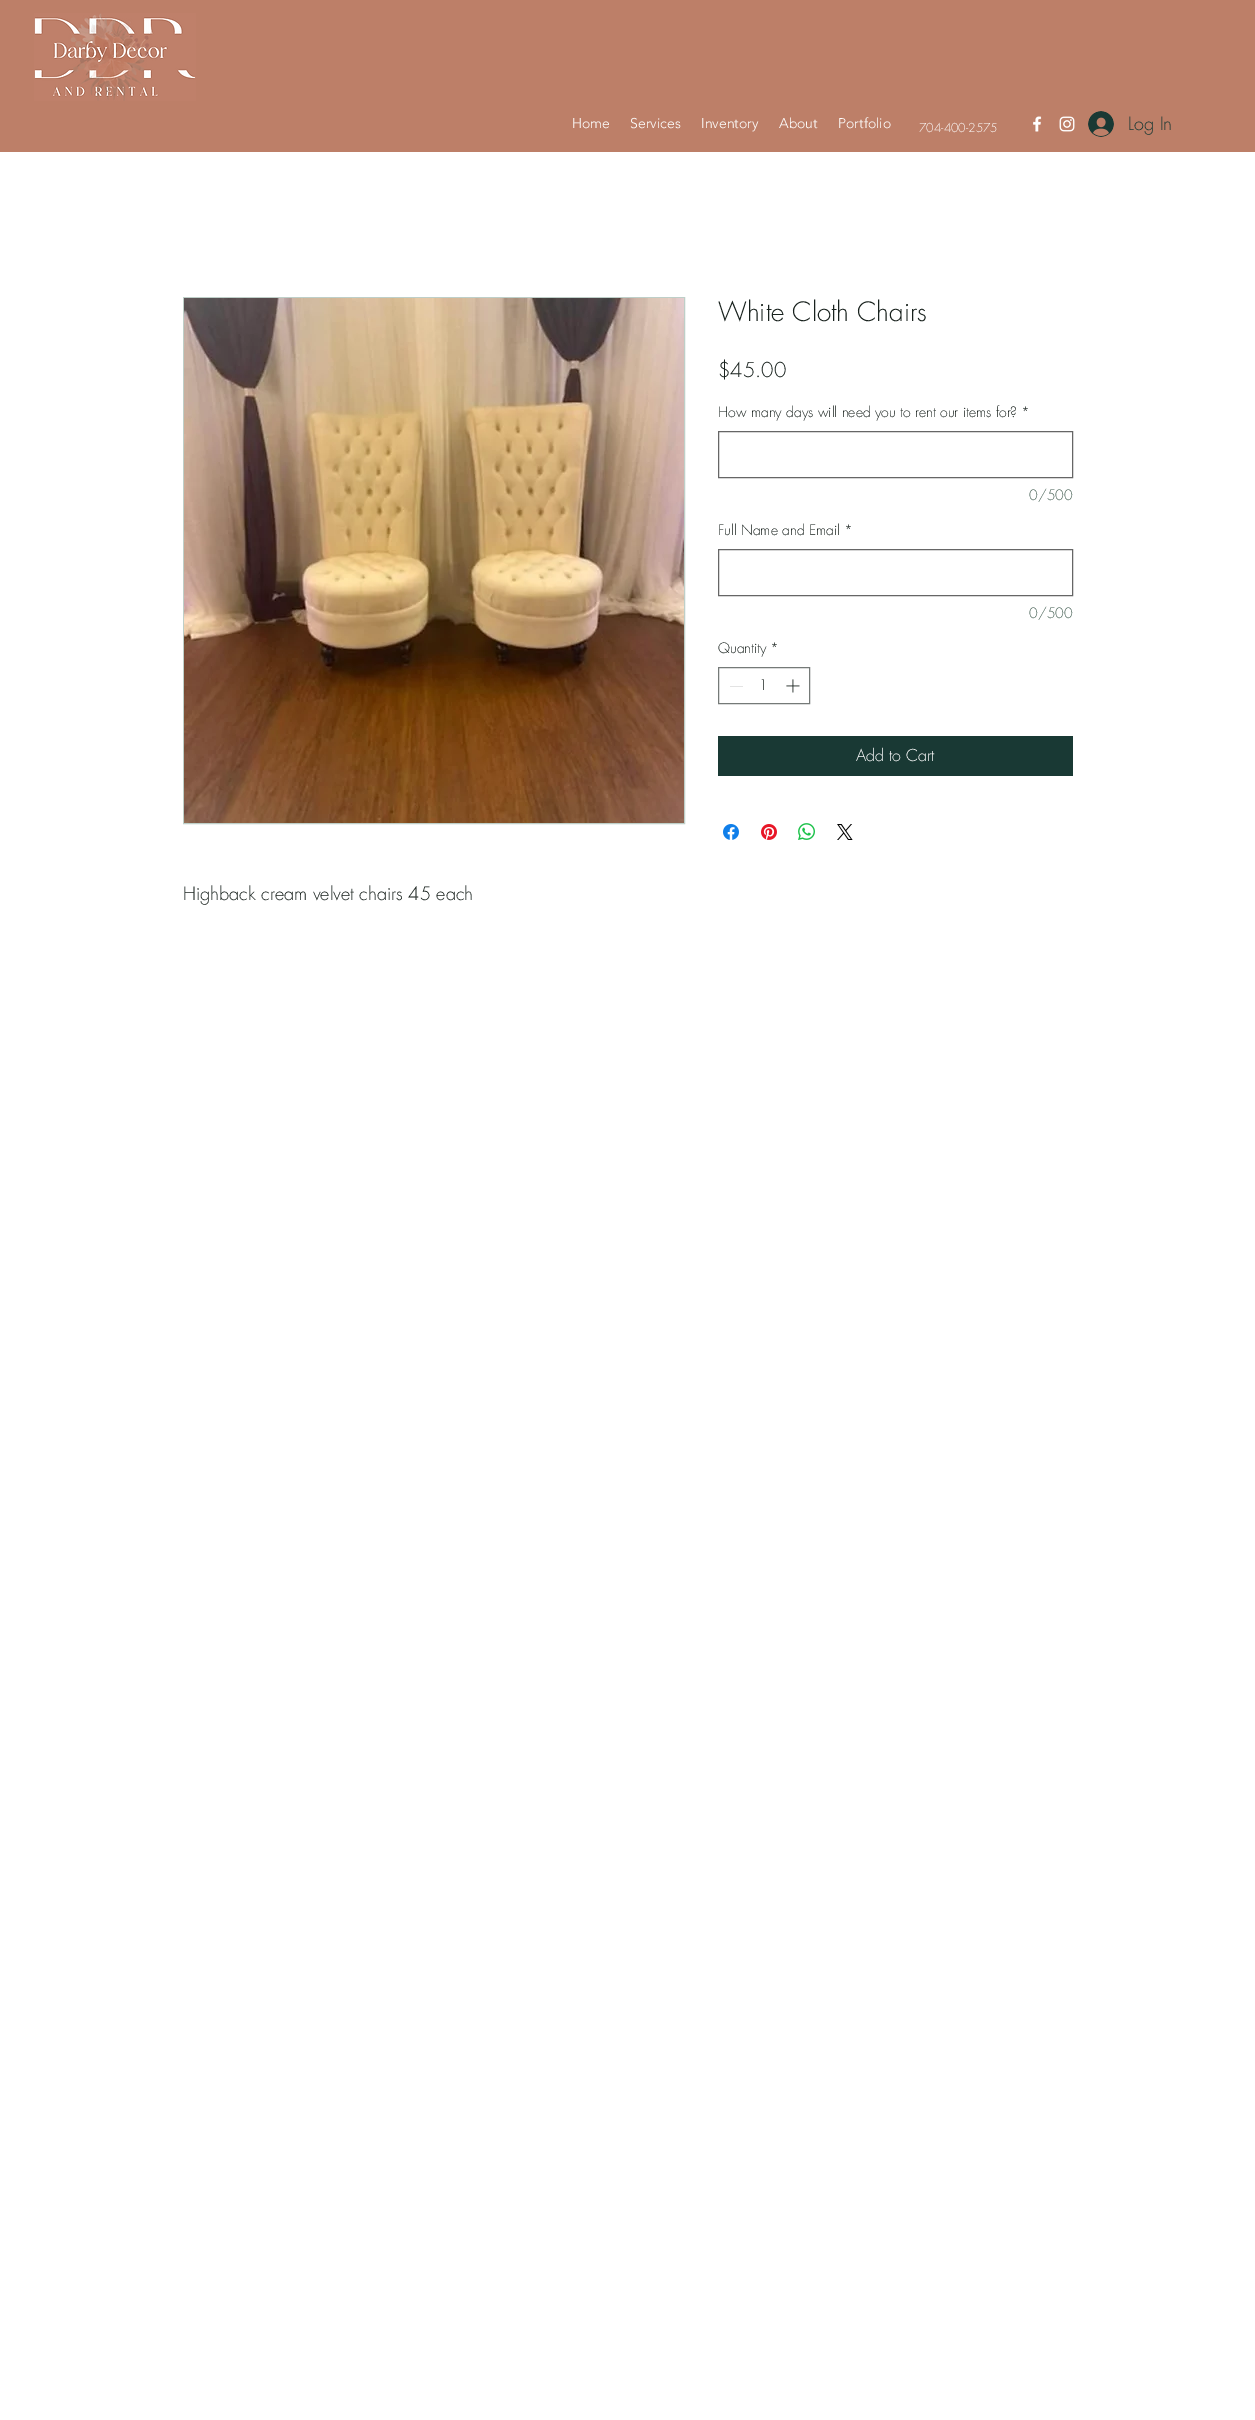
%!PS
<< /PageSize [1255 2420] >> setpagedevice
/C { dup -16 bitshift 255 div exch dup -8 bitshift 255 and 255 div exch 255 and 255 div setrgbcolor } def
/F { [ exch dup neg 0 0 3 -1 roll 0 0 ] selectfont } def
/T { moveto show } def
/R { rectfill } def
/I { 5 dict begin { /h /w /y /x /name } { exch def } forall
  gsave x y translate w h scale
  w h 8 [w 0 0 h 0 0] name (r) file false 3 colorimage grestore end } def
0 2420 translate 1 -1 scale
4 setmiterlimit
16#FFFFFF C
0 0 1255 2420 R
16#BD7F68 C
0 0 1255 152 R
(1.rgb) 34 13 162 88 I
/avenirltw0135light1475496-Light 14 F
16#FFFFFF C
(Home) 572 128 T
(Services) 630 128 T
(Inventory) 701 128 T
(About) 779 128 T
(Portfolio) 838 128 T
/futura-Light 12 F
(704-400-2575) 919 132 T
(2.rgb) 1033 116 9 16 I
(3.rgb) 1059 116 16 16 I
(4.rgb) 1088 111 26 26 I
/futura-Light 18 F
16#193934 C
(Log In) 1128 130 T
/futura-Light 26 F
16#19221E C
(White Cloth Chairs) 718 321 T
/futura-Light 20 F
($45.00) 718 377 T
/futura-Light 14 F
(How many days will need you to rent our items for?) 718 417 T
(*) 1021 417 T
16#666666 C
718.5 431.5 354 46 rectstroke
16#496357 C
(0/500) 1029 500 T
16#19221E C
(Full Name and Email) 718 535 T
(*) 844 535 T
16#666666 C
718.5 549.5 354 46 rectstroke
16#496357 C
(0/500) 1029 618 T
16#19221E C
(Quantity) 718 653 T
(*) 770 653 T
16#757A78 C
718.5 667.5 91 36 rectstroke
16#E3E3E3 C
730 686 13 1 R
16#19221E C
(1) 759 690 T
(5.rgb) 786 679 14 14 I
16#193934 C
718 736 355 40 R
/futura-Light 16 F
16#FFFFFF C
(Add to Cart) 856 761 T
(6.rgb) 723 824 16 16 I
(7.rgb) 761 824 16 16 I
(8.rgb) 798 823 17 17 I
(9.rgb) 837 824 16 16 I
16#BECFC8 C
183.5 297.5 501 526 rectstroke
(10.rgb) 184 298 500 525 I
/futura-Light 18 F
16#19221E C
(Highback cream velvet chairs 45 each) 183 900 T
showpage
